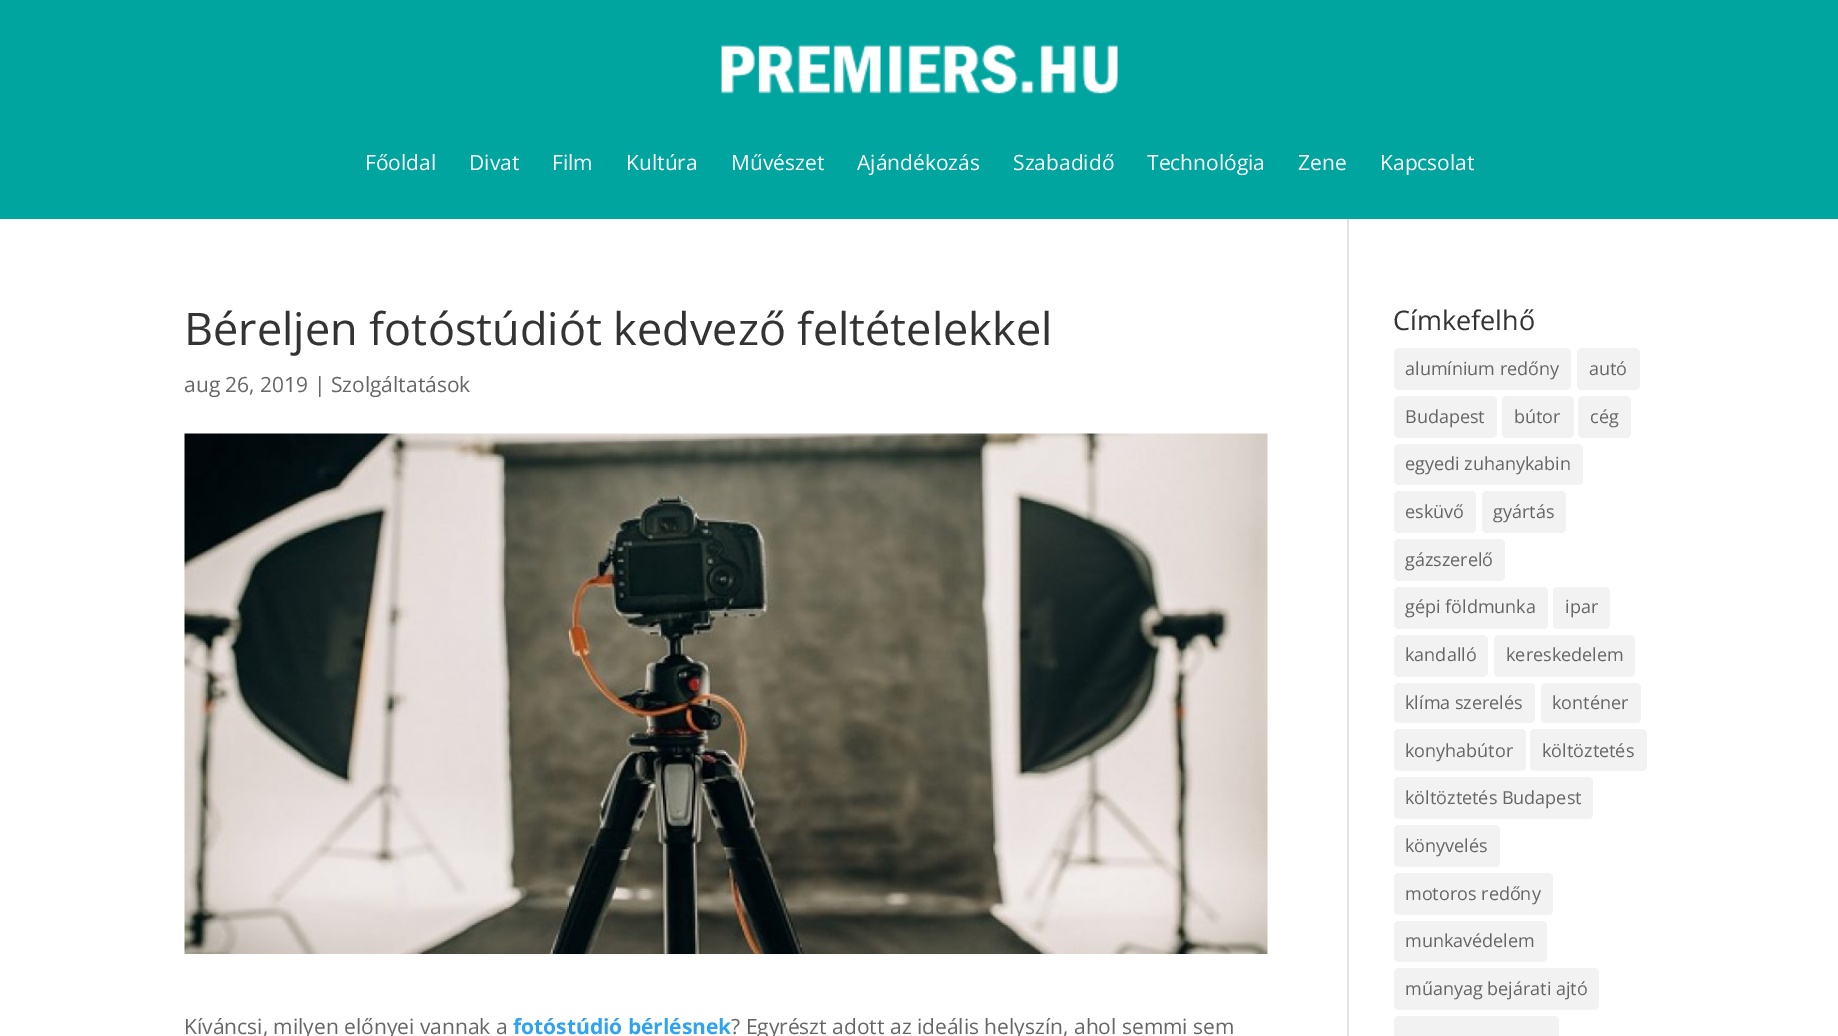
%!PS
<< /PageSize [1838 1036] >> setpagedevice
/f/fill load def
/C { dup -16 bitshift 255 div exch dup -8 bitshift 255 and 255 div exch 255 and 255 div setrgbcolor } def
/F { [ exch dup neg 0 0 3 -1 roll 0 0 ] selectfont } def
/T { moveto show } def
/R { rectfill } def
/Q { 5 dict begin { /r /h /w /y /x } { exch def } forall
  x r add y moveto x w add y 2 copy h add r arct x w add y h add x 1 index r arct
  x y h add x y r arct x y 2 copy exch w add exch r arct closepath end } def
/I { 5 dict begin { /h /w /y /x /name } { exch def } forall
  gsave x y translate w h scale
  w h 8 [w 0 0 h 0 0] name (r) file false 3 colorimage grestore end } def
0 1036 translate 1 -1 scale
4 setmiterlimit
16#FFFFFF C
0 0 1838 1036 R
16#00A5A0 C
0 0 1838 219 R
(1.rgb) 721 44 397 50 I
/OpenSans-Regular 21 F
16#FFFFFF C
(Főoldal) 365 170 T
(Divat) 469 170 T
(Film) 552 170 T
(Kultúra) 626 170 T
(Művészet) 731 170 T
(Ajándékozás) 857 170 T
(Szabadidő) 1013 170 T
(Technológia) 1147 170 T
(Zene) 1298 170 T
(Kapcsolat) 1380 170 T
16#E2E2E2 C
1347 219 2 817 R
/OpenSans-Regular 45 F
16#333333 C
(Béreljen fotóstúdiót kedvező feltételekkel) 184 345 T
/OpenSans-Regular 21 F
16#666666 C
(aug 26, 2019 | Szolgáltatások) 184 392 T
(2.rgb) 184 433 1084 521 I
(Kíváncsi, milyen előnyei vannak a) 184 1034 T
/OpenSans-Bold 21 F
16#2EA3F2 C
(fotóstúdió bérlésnek) 513 1034 T
/OpenSans-Regular 21 F
16#666666 C
(? Egyrészt adott az ideális helyszín, ahol semmi sem) 731 1034 T
/OpenSans-Regular 27 F
16#333333 C
(Címkefelhő) 1393 330 T
16#F2F2F2 C
1394 348 177 42 5 Q f
/OpenSans-Regular 18 F
16#666666 C
(alumínium redőny) 1405 375 T
16#F2F2F2 C
1577 348 63 42 5 Q f
16#666666 C
(autó) 1589 375 T
16#F2F2F2 C
1394 396 103 42 5 Q f
16#666666 C
(Budapest) 1405 423 T
16#F2F2F2 C
1502 396 72 42 5 Q f
16#666666 C
(bútor) 1514 423 T
16#F2F2F2 C
1578 396 53 42 5 Q f
16#666666 C
(cég) 1590 423 T
16#F2F2F2 C
1394 444 189 41 5 Q f
16#666666 C
(egyedi zuhanykabin) 1405 470 T
16#F2F2F2 C
1394 491 82 42 5 Q f
16#666666 C
(esküvő) 1405 518 T
16#F2F2F2 C
1482 491 84 42 5 Q f
16#666666 C
(gyártás) 1493 518 T
16#F2F2F2 C
1394 539 111 42 5 Q f
16#666666 C
(gázszerelő) 1405 566 T
16#F2F2F2 C
1394 587 154 42 5 Q f
16#666666 C
(gépi földmunka) 1405 613 T
16#F2F2F2 C
1553 587 57 42 5 Q f
16#666666 C
(ipar) 1565 613 T
16#F2F2F2 C
1394 635 94 42 5 Q f
16#666666 C
(kandalló) 1405 661 T
16#F2F2F2 C
1494 635 141 42 5 Q f
16#666666 C
(kereskedelem) 1506 661 T
16#F2F2F2 C
1394 683 141 40 5 Q f
16#666666 C
(klíma szerelés) 1405 709 T
16#F2F2F2 C
1541 683 100 40 5 Q f
16#666666 C
(konténer) 1552 709 T
16#F2F2F2 C
1394 729 132 42 5 Q f
16#666666 C
(konyhabútor) 1405 757 T
16#F2F2F2 C
1530 729 117 42 5 Q f
16#666666 C
(költöztetés) 1542 757 T
16#F2F2F2 C
1394 777 199 42 5 Q f
16#666666 C
(költöztetés Budapest) 1405 804 T
16#F2F2F2 C
1394 825 106 42 5 Q f
16#666666 C
(könyvelés) 1405 852 T
16#F2F2F2 C
1394 873 159 42 5 Q f
16#666666 C
(motoros redőny) 1405 900 T
16#F2F2F2 C
1394 921 153 41 5 Q f
16#666666 C
(munkavédelem) 1405 947 T
16#F2F2F2 C
1394 968 205 42 5 Q f
16#666666 C
(műanyag bejárati ajtó) 1405 995 T
16#F2F2F2 C
1394 1016 165 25 5 Q f
showpage
